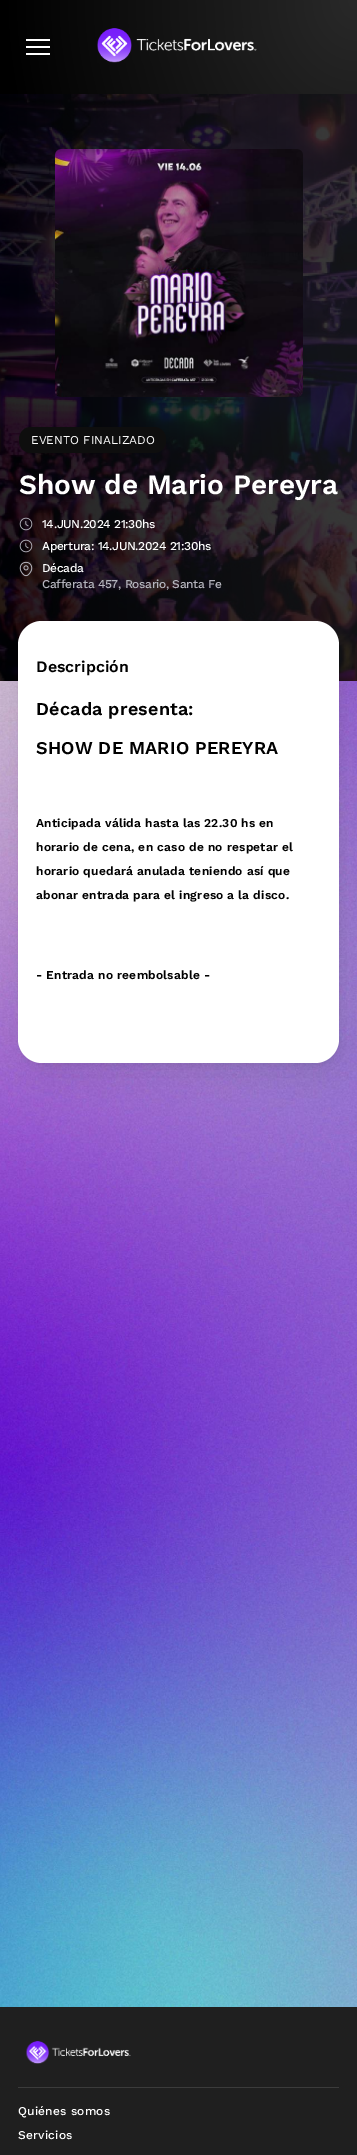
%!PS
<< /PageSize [357 2155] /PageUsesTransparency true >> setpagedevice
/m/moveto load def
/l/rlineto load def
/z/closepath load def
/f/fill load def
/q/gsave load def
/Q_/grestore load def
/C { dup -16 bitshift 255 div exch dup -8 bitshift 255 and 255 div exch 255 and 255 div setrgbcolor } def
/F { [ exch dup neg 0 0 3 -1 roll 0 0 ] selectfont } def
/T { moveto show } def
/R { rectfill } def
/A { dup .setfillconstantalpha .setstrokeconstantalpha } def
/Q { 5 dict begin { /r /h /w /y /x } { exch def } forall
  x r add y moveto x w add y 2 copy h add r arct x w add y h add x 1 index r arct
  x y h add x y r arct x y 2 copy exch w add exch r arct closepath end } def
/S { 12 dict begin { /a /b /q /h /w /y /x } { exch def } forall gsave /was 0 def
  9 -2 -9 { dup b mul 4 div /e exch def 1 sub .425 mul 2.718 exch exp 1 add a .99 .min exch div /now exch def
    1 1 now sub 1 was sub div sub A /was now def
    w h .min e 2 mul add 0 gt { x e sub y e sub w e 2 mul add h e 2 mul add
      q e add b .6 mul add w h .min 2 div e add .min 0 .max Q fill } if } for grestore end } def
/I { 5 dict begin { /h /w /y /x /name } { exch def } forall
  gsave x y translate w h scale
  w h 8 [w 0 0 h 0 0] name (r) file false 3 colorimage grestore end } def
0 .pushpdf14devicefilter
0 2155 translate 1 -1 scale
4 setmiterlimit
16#FFFFFF C
0 0 357 2155 R
q 0 0 m 357 0 l 0 94 l -357 0 l z clip newpath 357 0 translate 357 408 scale
<< /ShadingType 3 /ColorSpace /DeviceRGB /Coords [0 0 0 0 0 1] /Extend [true true] /Function << /FunctionType 2 /Domain [0 1] /C0 [.161 .161 .161] /C1 [0 0 0] /N 1 >> >> shfill Q_
26 39 24 2 R
26 46 24 2 R
26 53 24 2 R
(1.rgb) 97 28 160 35 I
(2.rgb) 0 681 357 1326 I
16#000000 C
0 94 357 587 R
(3.rgb) 0 94 357 587 I
0.5 A
q 0 94 m 357 0 l 0 587 l -357 0 l z clip newpath 357 94 translate 357 2550 scale
<< /ShadingType 3 /ColorSpace /DeviceRGB /Coords [0 0 0 0 0 1] /Extend [true true] /Function << /FunctionType 2 /Domain [0 1] /C0 [.161 .161 .161] /C1 [0 0 0] /N 1 >> >> shfill Q_
1 A
(4.rgb) 55 149 248 248 I
16#0E0E0E C
19 427 147 26 12 Q f
/WorkSans-Regular 12 F
16#FFFFFF C
(EVENTO FINALIZADO) 31 444 T
/WorkSans-SemiBold 28 F
(Show de Mario Pereyra) 19 494 T
(5.rgb) 19 517 14 14 I
/WorkSans-Medium 12 F
42 528 m -.35 0 (14.JUN.2024 21:30hs) ashow
(6.rgb) 19 539 14 14 I
42 550 m -.35 0 (Apertura: 14.JUN.2024 21:30hs) ashow
(7.rgb) 19 561 14 16 I
42 572 m -.35 0 (Década) ashow
16#B4B4BD C
42 588 m -.35 0 (Cafferata 457, Rosario, Santa Fe) ashow
16#000000 C
19 623 321 442 24 2.5 .05 S
22 632 321 442 24 16.5 .09 S
16#FFFFFF C
18 621 321 442 24 Q f
/WorkSans-SemiBold 16 F
16#000000 C
(Descripción) 36 672 T
/WorkSans-SemiBold 18 F
36 715 m .2 0 (Década presenta:) ashow
36 754 m .2 0 (SHOW DE MARIO PEREYRA) ashow
/WorkSans-SemiBold 12 F
36 827 m .2 0 (Anticipada válida hasta las 22.30 hs en) ashow
36 851 m .2 0 (horario de cena, en caso de no respetar el) ashow
36 875 m .2 0 (horario quedará anulada teniendo así que) ashow
36 899 m .2 0 (abonar entrada para el ingreso a la disco.) ashow
36 979 m .2 0 (- Entrada no reembolsable -) ashow
16#1F1F1F C
0 2007 357 148 R
(8.rgb) 26 2041 105 23 I
16#3B3B3B C
18 2087 321 1 R
/WorkSans-Medium 12 F
16#FFFFFF C
18 2115 m .2 0 (Quiénes somos) ashow
18 2139 m .2 0 (Servicios) ashow
.poppdf14devicefilter showpage
